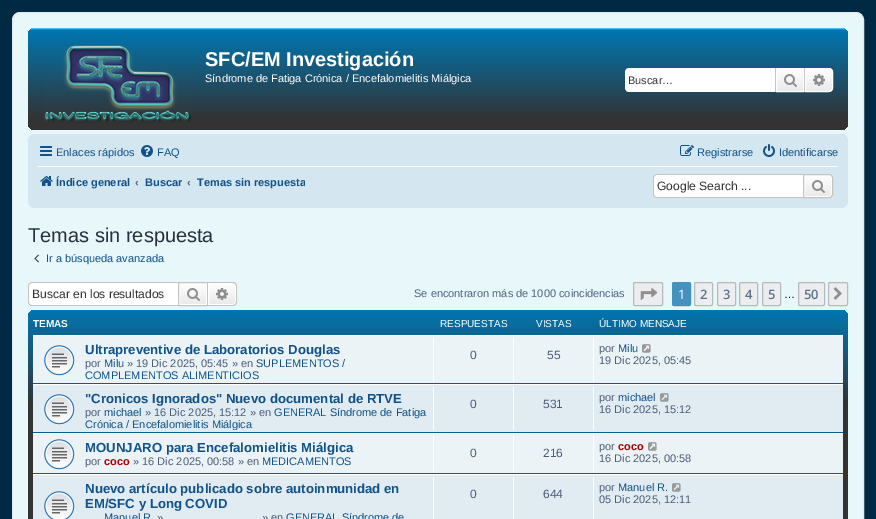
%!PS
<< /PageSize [876 519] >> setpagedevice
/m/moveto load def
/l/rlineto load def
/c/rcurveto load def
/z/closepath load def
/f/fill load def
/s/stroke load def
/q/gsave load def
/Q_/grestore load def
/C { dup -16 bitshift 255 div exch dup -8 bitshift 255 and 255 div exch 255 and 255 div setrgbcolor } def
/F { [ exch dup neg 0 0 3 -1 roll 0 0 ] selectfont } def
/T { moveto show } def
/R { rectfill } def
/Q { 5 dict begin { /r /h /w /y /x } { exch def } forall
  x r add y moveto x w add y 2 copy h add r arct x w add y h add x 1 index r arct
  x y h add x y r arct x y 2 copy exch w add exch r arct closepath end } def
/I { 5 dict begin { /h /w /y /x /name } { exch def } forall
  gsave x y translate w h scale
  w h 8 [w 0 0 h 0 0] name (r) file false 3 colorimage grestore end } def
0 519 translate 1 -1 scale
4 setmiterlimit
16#002A44 C
0 0 876 519 R
16#E7F7FA C
12.5 12.5 851 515 7.5 Q q f Q_
16#E6E9ED C
s
q 28 28 820 102 7 Q clip newpath
<< /ShadingType 2 /ColorSpace /DeviceRGB /Coords [438 28 438 130] /Extend [true true] /Function << /FunctionType 3 /Domain [0 1] /Functions [<< /FunctionType 2 /Domain [0 1] /C0 [.416 .808 1] /C1 [0 .463 .694] /N 1 >> << /FunctionType 2 /Domain [0 1] /C0 [0 .463 .694] /C1 [.2 .2 .2] /N 1 >> << /FunctionType 2 /Domain [0 1] /C0 [.2 .2 .2] /C1 [.2 .2 .2] /N 1 >>] /Bounds [.02 .9] /Encode [0 1 0 1 0 1] >> >> shfill Q_
(1.rgb) 44 45 147 78 I
/LiberationSans-Bold 20 F
16#FFFFFF C
(SFC/EM Investigación) 205 66 T
/LiberationSans-Regular 11 F
(Síndrome de Fatiga Crónica / Encefalomielitis Miálgica) 205 82 T
629 68 m 146 0 l 0 24 l -146 0 l -2 0 -4 -2 -4 -4 c 0 -16 l 0 -2 2 -4 4 -4 c z f
16#333333 C
(Buscar…) 628 84 T
q 777 69 m 26 0 l 0 22 l -26 0 l z clip newpath
<< /ShadingType 2 /ColorSpace /DeviceRGB /Coords [790 68 790 92] /Extend [true true] /Function << /FunctionType 2 /Domain [0 1] /C0 [1 1 1] /C1 [.914 .914 .914] /N 1 >> >> shfill Q_
16#FFFFFF C
776.5 68.5 27 23 rectstroke
16#C7C3BF C
804 68 1 24 R
775 68 1 24 R
(2.rgb) 784 74 13 13 I
q 805.5 68.5 m 23.5 0 l 2 0 3.5 1.5 3.5 3.5 c 0 16 l 0 2 -1.5 3.5 -3.5 3.5 c -23.5 0 l z clip newpath
<< /ShadingType 2 /ColorSpace /DeviceRGB /Coords [819 68 819 92] /Extend [true true] /Function << /FunctionType 2 /Domain [0 1] /C0 [1 1 1] /C1 [.914 .914 .914] /N 1 >> >> shfill Q_
16#FFFFFF C
805.5 68.5 m 23.5 0 l 2 0 3.5 1.5 3.5 3.5 c 0 16 l 0 2 -1.5 3.5 -3.5 3.5 c -23.5 0 l z s
(3.rgb) 813 74 12 12 I
16#D4E6F0 C
28 134 820 74 7 Q f
(4.rgb) 40 146 12 10 I
16#105289 C
(Enlaces rápidos) 56 156 T
(5.rgb) 141 145 12 12 I
(FAQ) 157 156 T
(6.rgb) 680 145 14 11 I
(Registrarse) 697 156 T
(7.rgb) 763 144 12 13 I
(Identificarse) 779 156 T
16#FFFFFF C
38 166 800 1 R
(8.rgb) 40 176 13 10 I
/LiberationSans-Bold 11 F
16#105289 C
(Índice general) 56 186 T
16#536482 C
(‹) 135 186 T
16#105289 C
(Buscar) 145 186 T
16#536482 C
(‹) 187 186 T
q
197 170 108 24 rectclip
16#105289 C
(Temas sin respuesta) 197 186 T
Q_
16#FFFFFF C
657 175 m 146 0 l 0 22 l -146 0 l -1.5 0 -3 -1.5 -3 -3 c 0 -16 l 0 -1.5 1.5 -3 3 -3 c z f
16#C7C3BF C
657 174 m 146 0 l 0 24 l -146 0 l -2 0 -4 -2 -4 -4 c 0 -16 l 0 -2 2 -4 4 -4 c z 657 175 m 146 0 l 0 22 l -146 0 l -2 0 -3 -1 -3 -3 c 0 -16 l 0 -2 1 -3 3 -3 c z eofill
/LiberationSans-Regular 12.1 F
16#333333 C
(Google Search ...) 657 190 T
q
803 174 m 26 0 l 2 0 4 2 4 4 c 0 16 l 0 2 -2 4 -4 4 c -26 0 l z clip newpath
q 805 175 m 28 0 l 0 22 l -28 0 l z clip newpath
<< /ShadingType 2 /ColorSpace /DeviceRGB /Coords [818 175 818 197] /Extend [true true] /Function << /FunctionType 2 /Domain [0 1] /C0 [1 1 1] /C1 [.914 .914 .914] /N 1 >> >> shfill Q_
Q_
16#FFFFFF C
804.5 175.5 m 24.5 0 l 1.5 0 2.5 1 2.5 2.5 c 0 16 l 0 1.5 -1 2.5 -2.5 2.5 c -24.5 0 l z s
16#C7C3BF C
803.5 174.5 m 25.5 0 l 2 0 3.5 1.5 3.5 3.5 c 0 16 l 0 2 -1.5 3.5 -3.5 3.5 c -25.5 0 l z s
(9.rgb) 812 180 13 13 I
/LiberationSans-Regular 20 F
16#28313F C
(Temas sin respuesta) 28 242 T
(10.rgb) 34 254 5 9 I
/LiberationSans-Regular 11 F
16#105289 C
(Ir a búsqueda avanzada) 46 262 T
16#FFFFFF C
32 283 m 146 0 l 0 22 l -146 0 l -1.5 0 -3 -1.5 -3 -3 c 0 -16 l 0 -1.5 1.5 -3 3 -3 c z f
16#C7C3BF C
32 282 m 146 0 l 0 24 l -146 0 l -2 0 -4 -2 -4 -4 c 0 -16 l 0 -2 2 -4 4 -4 c z 32 283 m 146 0 l 0 22 l -146 0 l -2 0 -3 -1 -3 -3 c 0 -16 l 0 -2 1 -3 3 -3 c z eofill
/LiberationSans-Regular 12.1 F
16#333333 C
(Buscar en los resultados) 32 298 T
q 180 284 m 26 0 l 0 20 l -26 0 l z clip newpath
<< /ShadingType 2 /ColorSpace /DeviceRGB /Coords [193 283 193 305] /Extend [true true] /Function << /FunctionType 2 /Domain [0 1] /C0 [1 1 1] /C1 [.914 .914 .914] /N 1 >> >> shfill Q_
16#FFFFFF C
179.5 283.5 27 21 rectstroke
16#C7C3BF C
178.5 282.5 29 23 rectstroke
(9.rgb) 187 288 13 13 I
q 208.5 283.5 m 24.5 0 l 1.5 0 2.5 1 2.5 2.5 c 0 16 l 0 1.5 -1 2.5 -2.5 2.5 c -24.5 0 l z clip newpath
<< /ShadingType 2 /ColorSpace /DeviceRGB /Coords [222 283 222 305] /Extend [true true] /Function << /FunctionType 2 /Domain [0 1] /C0 [1 1 1] /C1 [.914 .914 .914] /N 1 >> >> shfill Q_
16#FFFFFF C
208.5 283.5 m 24.5 0 l 1.5 0 2.5 1 2.5 2.5 c 0 16 l 0 1.5 -1 2.5 -2.5 2.5 c -24.5 0 l z s
16#C7C3BF C
208 282 m 25 0 l 2 0 4 2 4 4 c 0 16 l 0 2 -2 4 -4 4 c -25 0 l z 208 283 m 25 0 l 1.5 0 3 1.5 3 3 c 0 16 l 0 1.5 -1.5 3 -3 3 c -25 0 l z eofill
(11.rgb) 216 288 12 12 I
/LiberationSans-Regular 11 F
16#536482 C
(Se encontraron más de 1000 coincidencias) 414 297 T
16#ECEDEE C
633.5 282.5 29 23 1.5 Q q f Q_
16#B4BAC0 C
s
(12.rgb) 640 288 18 12 I
16#4692BF C
672.5 282.5 18 23 1.5 Q q f Q_
s
/OpenSans-Regular 13 F
16#FFFFFF C
(1) 678 299 T
16#ECEDEE C
694.5 282.5 18 23 1.5 Q q f Q_
16#B4BAC0 C
s
/OpenSans-SemiBold 13 F
16#5C758C C
(2) 700 299 T
16#ECEDEE C
717.5 282.5 18 23 1.5 Q q f Q_
16#B4BAC0 C
s
16#5C758C C
(3) 723 299 T
16#ECEDEE C
739.5 282.5 18 23 1.5 Q q f Q_
16#B4BAC0 C
s
16#5C758C C
(4) 745 299 T
16#ECEDEE C
762.5 282.5 18 23 1.5 Q q f Q_
16#B4BAC0 C
s
16#5C758C C
(5) 768 299 T
/LiberationSans-Regular 11 F
16#000000 C
(…) 784 298 T
16#ECEDEE C
798.5 282.5 26 23 1.5 Q q f Q_
16#B4BAC0 C
s
/OpenSans-SemiBold 13 F
16#5C758C C
(50) 804 299 T
16#ECEDEE C
828.5 282.5 19 23 1.5 Q q f Q_
16#B4BAC0 C
s
(13.rgb) 833 287 9 13 I
q 28 310 820 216 7 Q clip newpath
<< /ShadingType 2 /ColorSpace /DeviceRGB /Coords [438 310 438 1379] /Extend [true true] /Function << /FunctionType 3 /Domain [0 1] /Functions [<< /FunctionType 2 /Domain [0 1] /C0 [0 .463 .694] /C1 [.2 .2 .2] /N 1 >> << /FunctionType 2 /Domain [0 1] /C0 [.2 .2 .2] /C1 [.2 .2 .2] /N 1 >>] /Bounds [.09] /Encode [0 1 0 1] >> >> shfill Q_
/LiberationSans-Bold 10 F
16#FFFFFF C
(TEMAS) 33 327 T
/LiberationSans-Regular 10 F
(RESPUESTAS) 440 327 T
(VISTAS) 536 327 T
(ÚLTIMO MENSAJE) 599 327 T
16#ECF3F7 C
33 336 810 47 R
16#FFFFFF C
33 335 810 1 R
16#00608F C
33 383 810 1 R
(14.rgb) 44 345 31 31 I
/LiberationSans-Bold 13.2 F
16#105289 C
(Ultrapreventive de Laboratorios Douglas) 85 354 T
/LiberationSans-Regular 11 F
16#4C5D77 C
(por) 85 367 T
16#105289 C
(Milu) 104 367 T
16#4C5D77 C
(» 19 Dic 2025, 05:45 » en) 127 367 T
16#105289 C
(SUPLEMENTOS /) 256 367 T
(COMPLEMENTOS ALIMENTICIOS) 85 379 T
16#FFFFFF C
433 338 1 43 R
/LiberationSans-Regular 12 F
16#4C5D77 C
(0) 470 359 T
16#FFFFFF C
513 338 1 43 R
16#4C5D77 C
(55) 547 359 T
16#FFFFFF C
593 338 1 43 R
/LiberationSans-Regular 11 F
16#4C5D77 C
(por) 599 352 T
16#105289 C
(Milu) 618 352 T
(15.rgb) 642 344 9 9 I
16#4C5D77 C
(19 Dic 2025, 05:45) 599 364 T
16#E1EBF2 C
33 385 810 47 R
16#FFFFFF C
33 384 810 1 R
16#00608F C
33 432 810 1 R
(16.rgb) 44 394 31 31 I
/LiberationSans-Bold 13.2 F
16#105289 C
("Cronicos Ignorados" Nuevo documental de RTVE) 85 403 T
/LiberationSans-Regular 11 F
16#4C5D77 C
(por) 85 416 T
16#105289 C
(michael) 104 416 T
16#4C5D77 C
(» 16 Dic 2025, 15:12 » en) 145 416 T
16#105289 C
(GENERAL Síndrome de Fatiga) 274 416 T
q
33 387 810 43 rectclip
(Crónica / Encefalomielitis Miálgica) 85 428 T
Q_
16#FFFFFF C
433 387 1 43 R
/LiberationSans-Regular 12 F
16#4C5D77 C
(0) 470 408 T
16#FFFFFF C
513 387 1 43 R
16#4C5D77 C
(531) 543 408 T
16#FFFFFF C
593 387 1 43 R
/LiberationSans-Regular 11 F
16#4C5D77 C
(por) 599 401 T
16#105289 C
(michael) 618 401 T
(17.rgb) 660 393 9 9 I
16#4C5D77 C
(16 Dic 2025, 15:12) 599 413 T
16#ECF3F7 C
33 434 810 39 R
16#FFFFFF C
33 433 810 1 R
16#00608F C
33 473 810 1 R
(14.rgb) 44 439 31 31 I
/LiberationSans-Bold 13.2 F
16#105289 C
(MOUNJARO para Encefalomielitis Miálgica) 85 452 T
/LiberationSans-Regular 11 F
16#4C5D77 C
(por) 85 465 T
/LiberationSans-Bold 11 F
16#AA0000 C
(coco) 104 465 T
/LiberationSans-Regular 11 F
16#4C5D77 C
(» 16 Dic 2025, 00:58 » en) 133 465 T
16#105289 C
(MEDICAMENTOS) 262 465 T
16#FFFFFF C
433 436 1 35 R
/LiberationSans-Regular 12 F
16#4C5D77 C
(0) 470 457 T
16#FFFFFF C
513 436 1 35 R
16#4C5D77 C
(216) 543 457 T
16#FFFFFF C
593 436 1 35 R
/LiberationSans-Regular 11 F
16#4C5D77 C
(por) 599 450 T
/LiberationSans-Bold 11 F
16#AA0000 C
(coco) 618 450 T
(15.rgb) 648 442 9 9 I
/LiberationSans-Regular 11 F
16#4C5D77 C
(16 Dic 2025, 00:58) 599 462 T
16#E1EBF2 C
33 475 810 44 R
16#FFFFFF C
33 474 810 1 R
(18.rgb) 44 491 31 28 I
/LiberationSans-Bold 13.2 F
16#105289 C
(Nuevo artículo publicado sobre autoinmunidad en) 85 493 T
(EM/SFC y Long COVID) 85 508 T
/LiberationSans-Regular 11 F
(Manuel R) 104 521 T
16#4C5D77 C
(») 157 521 T
(» en) 262 521 T
16#105289 C
(GENERAL Síndrome de) 286 521 T
16#FFFFFF C
433 477 1 42 R
/LiberationSans-Regular 12 F
16#4C5D77 C
(0) 470 498 T
16#FFFFFF C
513 477 1 42 R
16#4C5D77 C
(644) 543 498 T
16#FFFFFF C
593 477 1 42 R
/LiberationSans-Regular 11 F
16#4C5D77 C
(por) 599 491 T
16#105289 C
(Manuel R.) 618 491 T
(17.rgb) 672 483 9 9 I
16#4C5D77 C
(05 Dic 2025, 12:11) 599 503 T
showpage
